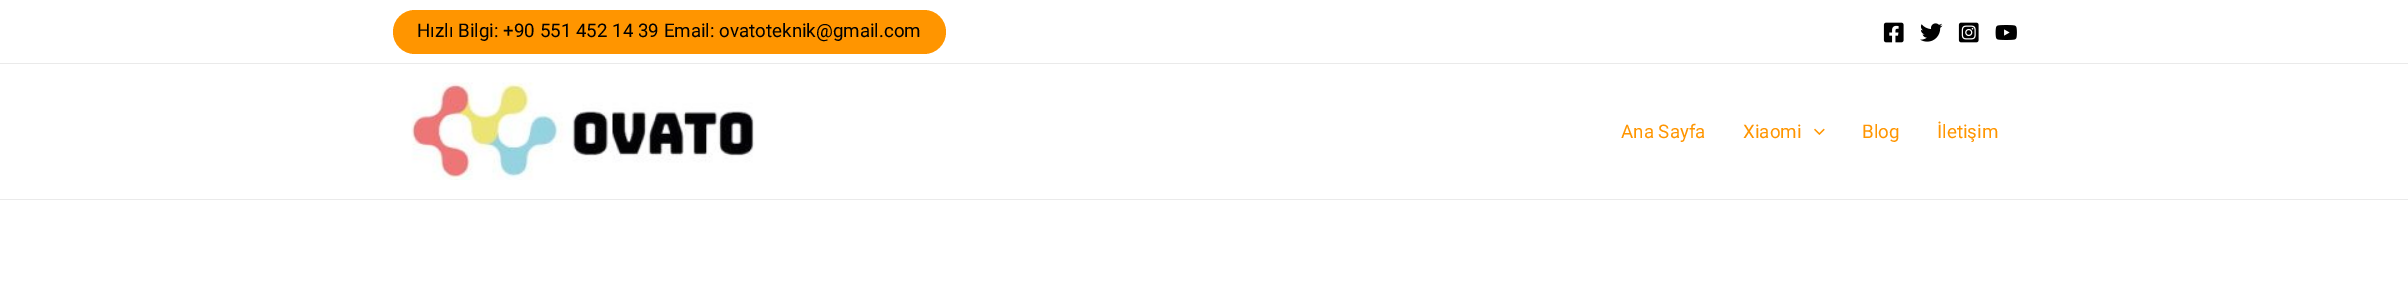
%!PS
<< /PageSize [2408 308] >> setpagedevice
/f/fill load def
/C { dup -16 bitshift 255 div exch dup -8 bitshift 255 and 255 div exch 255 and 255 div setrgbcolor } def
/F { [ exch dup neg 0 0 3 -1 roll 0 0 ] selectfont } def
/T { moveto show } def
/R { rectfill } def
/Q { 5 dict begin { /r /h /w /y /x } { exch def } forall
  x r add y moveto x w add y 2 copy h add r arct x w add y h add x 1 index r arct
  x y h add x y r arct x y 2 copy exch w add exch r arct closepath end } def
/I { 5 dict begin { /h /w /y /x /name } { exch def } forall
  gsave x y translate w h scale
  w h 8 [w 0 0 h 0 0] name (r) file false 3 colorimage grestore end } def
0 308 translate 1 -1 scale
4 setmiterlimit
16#FFFFFF C
0 0 2408 308 R
16#EAEAEA C
0 63 2408 1 R
16#FF9500 C
393 10 553 44 22 Q f
/Roboto-Regular 18.75 F
16#000000 C
(Hızlı Bilgi: +90 551 452 14 39 Email: ovatoteknik@gmail.com) 417 37 T
(1.rgb) 1883 22 21 21 I
(2.rgb) 1920 23 23 19 I
(3.rgb) 1958 22 21 21 I
(4.rgb) 1995 25 22 15 I
16#EAEAEA C
0 199 2408 1 R
(5.rgb) 411 82 344 98 I
16#FF9500 C
(Ana Sayfa) 1621 138 T
(Xiaomi) 1743 138 T
(6.rgb) 1814 128 11 7 I
(Blog) 1862 138 T
(İletişim) 1937 138 T
showpage
